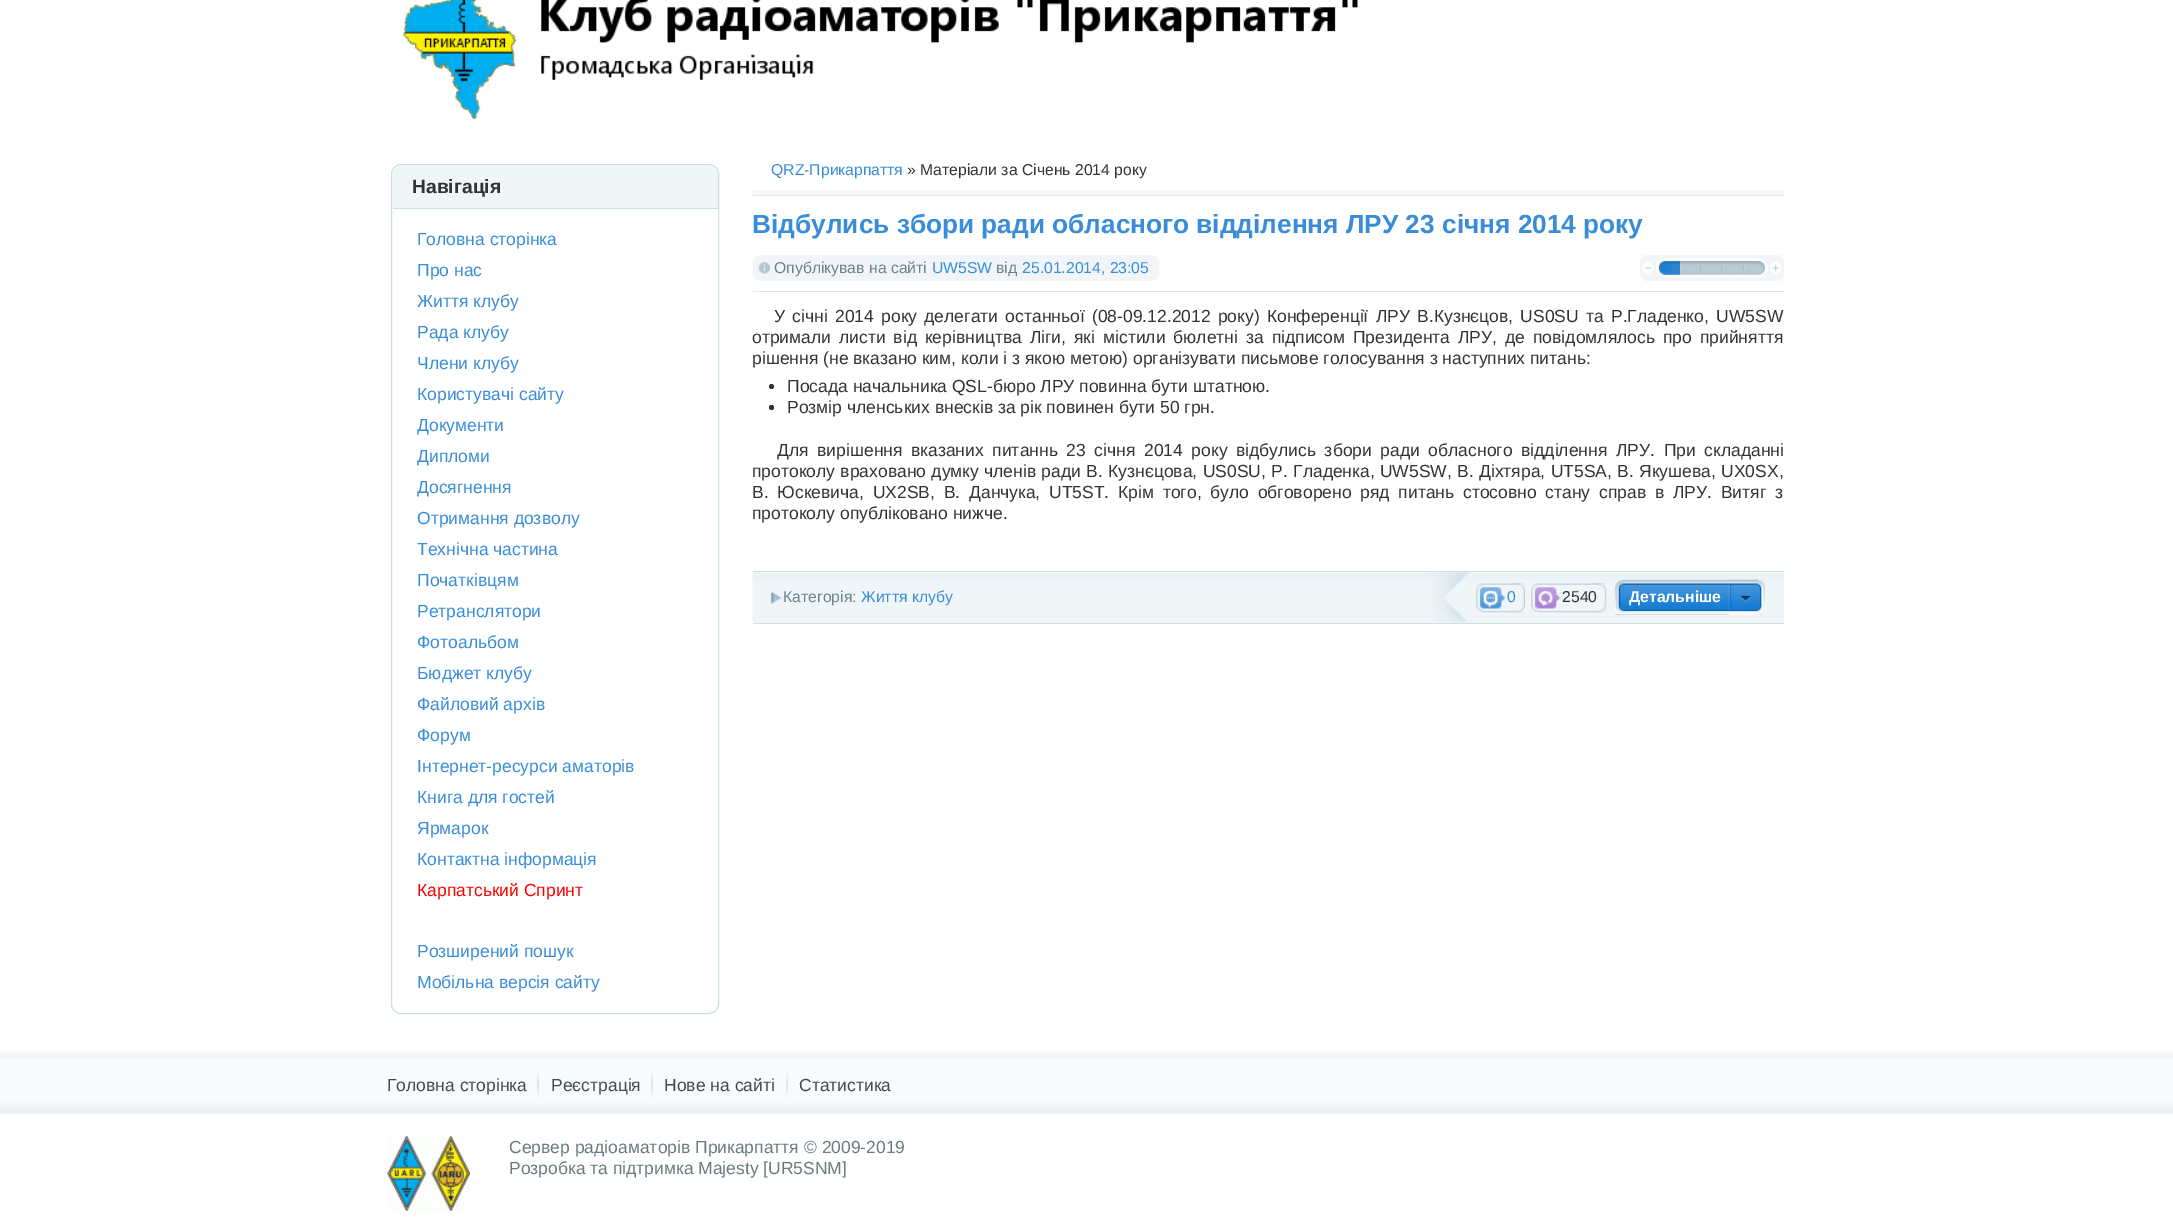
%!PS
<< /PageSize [2173 1229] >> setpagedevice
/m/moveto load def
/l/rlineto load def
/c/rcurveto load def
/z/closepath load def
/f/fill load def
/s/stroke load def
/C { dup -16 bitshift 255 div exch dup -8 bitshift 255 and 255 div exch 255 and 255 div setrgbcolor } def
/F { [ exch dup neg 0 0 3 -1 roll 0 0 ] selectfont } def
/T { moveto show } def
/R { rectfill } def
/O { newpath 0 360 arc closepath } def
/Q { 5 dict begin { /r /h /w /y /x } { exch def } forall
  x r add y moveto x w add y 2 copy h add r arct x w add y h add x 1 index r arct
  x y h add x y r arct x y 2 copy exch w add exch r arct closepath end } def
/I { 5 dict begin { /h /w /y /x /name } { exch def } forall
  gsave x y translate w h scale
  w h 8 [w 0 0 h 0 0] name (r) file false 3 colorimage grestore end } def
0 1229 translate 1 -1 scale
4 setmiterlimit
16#FFFFFF C
0 0 2173 1229 R
(1.rgb) 402 0 956 120 I
16#CBDFE8 C
391.5 164.5 327 849 9.5 Q s
16#F0F5F8 C
403 165 m 305 0 l 5.5 0 10 4.5 10 10 c 0 34 l -325 0 l 0 -34 l 0 -5.5 4.5 -10 10 -10 c z f
16#CBDFE8 C
393 208 325 1 R
/LiberationSans-Bold 19.25 F
16#333333 C
(Навігація) 412 193 T
/LiberationSans-Regular 17.5 F
16#398DD8 C
(Головна сторінка) 417 245 T
(Про нас) 417 276 T
(Життя клубу) 417 307 T
(Рада клубу) 417 338 T
(Члени клубу) 417 369 T
(Користувачі сайту) 417 400 T
(Документи) 417 431 T
(Дипломи) 417 462 T
(Досягнення) 417 493 T
(Отримання дозволу) 417 524 T
(Технічна частина) 417 555 T
(Початківцям) 417 586 T
(Ретранслятори) 417 617 T
(Фотоальбом) 417 648 T
(Бюджет клубу) 417 679 T
(Файловий архів) 417 710 T
(Форум) 417 741 T
(Інтернет-ресурси аматорів) 417 772 T
(Книга для гостей) 417 803 T
(Ярмарок) 417 834 T
(Контактна інформація) 417 865 T
16#FF0000 C
(Карпатський Спринт) 417 896 T
16#398DD8 C
(Розширений пошук) 417 957 T
(Мобільна версія сайту) 417 988 T
16#F7F7F7 C
752 190 1032 5 R
16#E5E5E5 C
753 195 1031 1 R
/LiberationSans-Regular 15.75 F
16#398DD8 C
(QRZ-Прикарпаття) 771 175 T
16#333333 C
(» Матеріали за Січень 2014 року) 907 175 T
/LiberationSans-Bold 26.25 F
16#398DD8 C
(Відбулись збори ради обласного відділення ЛРУ 23 січня 2014 року) 752 233 T
16#DBE8ED C
753 291 1031 1 R
16#F1F5F7 C
753 255 406 26 8 Q f
(2.rgb) 758 262 12 12 I
/LiberationSans-Regular 15.75 F
16#6C838E C
(Опублікував на сайті) 774 273 T
16#398DD8 C
(UW5SW) 932 273 T
16#6C838E C
(від) 996 273 T
16#398DD8 C
(25.01.2014, 23:05) 1022 273 T
(3.rgb) 1640 255 144 26 I
(4.rgb) 1658 258 107 17 I
(5.rgb) 1658 260 22 15 I
/LiberationSans-Regular 17.5 F
16#333333 C
774 322 m 2.4 0 32 (У січні 2014 року делегати останньої \(08-09.12.2012 року\) Конференції ЛРУ В.Кузнєцов, US0SU та Р.Гладенко, UW5SW) widthshow
752 343 m 3.1 0 32 (отримали листи від керівництва Ліги, які містили бюлетні за підписом Президента ЛРУ, де повідомлялось про прийняття) widthshow
(рішення \(не вказано ким, коли і з якою метою\) організувати письмове голосування з наступних питань:) 752 364 T
771.5 386.5 2.5 O f
(Посада начальника QSL-бюро ЛРУ повинна бути штатною.) 787 392 T
771.5 407.5 2.5 O f
(Розмір членських внесків за рік повинен бути 50 грн.) 787 413 T
777 456 m 3.75 0 32 (Для вирішення вказаних питаннь 23 січня 2014 року відбулись збори ради обласного відділення ЛРУ. При складанні) widthshow
752 477 m .5 0 32 (протоколу враховано думку членів ради В. Кузнєцова, US0SU, Р. Гладенка, UW5SW, В. Діхтяра, UT5SA, В. Якушева, UX0SX,) widthshow
752 498 m 3.9 0 32 (В. Юскевича, UX2SB, В. Данчука, UT5ST. Крім того, було обговорено ряд питань стосовно стану справ в ЛРУ. Витяг з) widthshow
(протоколу опубліковано нижче.) 752 519 T
16#F0F5F8 C
753 573 1031 50 R
(6.rgb) 752 572 1032 50 I
16#CBDFE8 C
753 571 1031 1 R
753 623 1031 1 R
(7.rgb) 771 592 11 12 I
/LiberationSans-Regular 15.75 F
16#6C838E C
(Категорія:) 783 602 T
16#398DD8 C
(Життя клубу) 861 602 T
(8.rgb) 1431 572 38 50 I
(9.rgb) 1476 583 49 30 I
(10.rgb) 1512 583 13 30 I
(0) 1507 602 T
(11.rgb) 1531 583 76 30 I
(12.rgb) 1594 583 13 30 I
16#333333 C
(2540) 1562 602 T
(13.rgb) 1615 579 150 36 I
(14.rgb) 1728 579 37 36 I
/LiberationSans-Bold 15.75 F
16#FFFFFF C
(Детальніше) 1629 602 T
16#F8FAFC C
0 1113 2173 1 R
(15.rgb) 0 1058 2173 56 I
(16.rgb) 0 1051 2173 8 I
/LiberationSans-Regular 17.5 F
16#3F4B51 C
(Головна сторінка) 387 1091 T
(17.rgb) 537 1072 2 26 I
(Реєстрація) 551 1091 T
(18.rgb) 651 1072 2 26 I
(Нове на сайті) 664 1091 T
(18.rgb) 786 1072 2 26 I
(Статистика) 799 1091 T
(19.rgb) 387 1136 83 75 I
16#6B7A81 C
(Сервер радіоаматорів Прикарпаття © 2009-2019) 509 1153 T
(Розробка та підтримка Majesty [UR5SNM]) 509 1174 T
showpage
